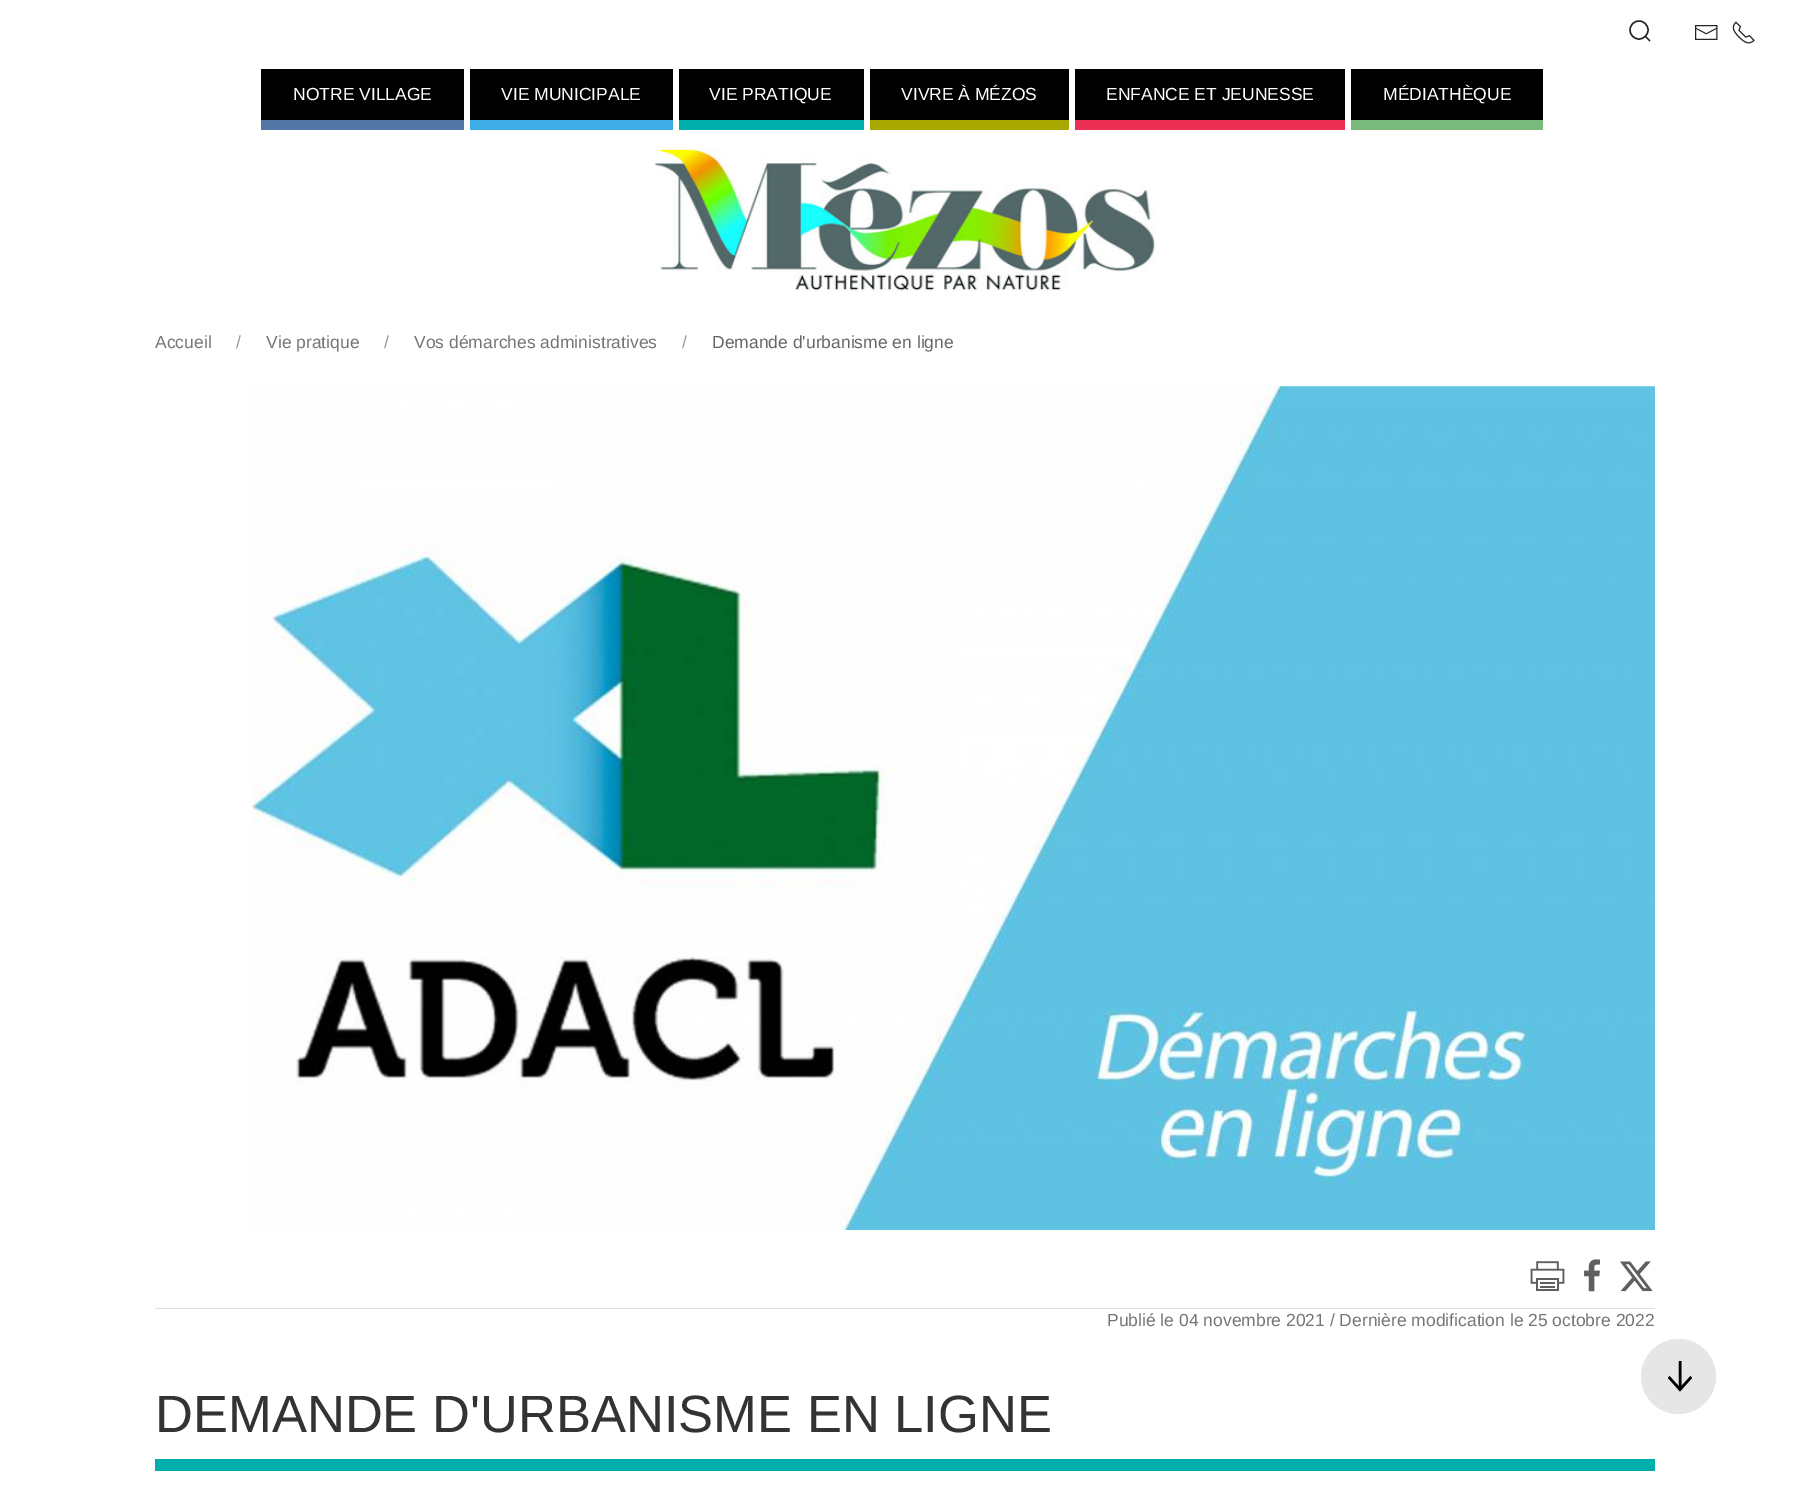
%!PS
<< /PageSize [1810 1495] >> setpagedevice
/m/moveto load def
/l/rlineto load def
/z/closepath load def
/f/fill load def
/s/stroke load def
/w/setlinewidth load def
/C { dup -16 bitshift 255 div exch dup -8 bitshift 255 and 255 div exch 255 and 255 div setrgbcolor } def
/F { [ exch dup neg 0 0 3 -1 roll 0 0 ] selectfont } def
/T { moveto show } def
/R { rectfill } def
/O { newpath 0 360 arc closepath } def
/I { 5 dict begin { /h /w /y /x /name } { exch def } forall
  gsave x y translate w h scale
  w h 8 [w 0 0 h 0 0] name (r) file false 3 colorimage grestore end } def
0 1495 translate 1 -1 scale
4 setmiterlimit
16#FFFFFF C
0 0 1810 1495 R
16#212529 C
1.4 w
1639 30 9 O s
1645 36 m 5 5 l z s
(1.rgb) 1695 25 23 15 I
(2.rgb) 1732 21 23 23 I
16#000000 C
261 69 203 51 R
16#5276A6 C
261 120 203 10 R
/LiberationSans-Regular 17.5 F
16#FFFFFF C
(NOTRE VILLAGE) 293 100 T
16#000000 C
470 69 203 51 R
16#3EADE5 C
470 120 203 10 R
16#FFFFFF C
(VIE MUNICIPALE) 501 100 T
16#000000 C
679 69 185 51 R
16#00AEAC C
679 120 185 10 R
16#FFFFFF C
(VIE PRATIQUE) 709 100 T
16#000000 C
870 69 199 51 R
16#A9A800 C
870 120 199 10 R
16#FFFFFF C
(VIVRE À MÉZOS) 901 100 T
16#000000 C
1075 69 270 51 R
16#EC2F55 C
1075 120 270 10 R
16#FFFFFF C
(ENFANCE ET JEUNESSE) 1106 100 T
16#000000 C
1351 69 192 51 R
16#7ABA7D C
1351 120 192 10 R
16#FFFFFF C
(MÉDIATHÈQUE) 1383 100 T
(3.rgb) 655 148 500 143 I
16#E6E6E6 C
1678.5 1376.5 37.5 O f
16#000000 C
1680 1391.5 m -12 -13.5 l 1.5 -2 l 10.5 11.5 l 10.5 -11.5 l 1.5 2 l z f
2.5 w
1680 1361 m 0 28 l s
16#757575 C
(Accueil) 155 348 T
16#999999 C
(/) 236 348 T
16#757575 C
(Vie pratique) 266 348 T
16#999999 C
(/) 384 348 T
16#757575 C
(Vos démarches administratives) 414 348 T
16#999999 C
(/) 682 348 T
16#666666 C
(Demande d'urbanisme en ligne) 712 348 T
(4.rgb) 251 386 1404 844 I
16#DEDEDE C
155 1308 1500 1 R
(5.rgb) 1530 1261 35 30 I
(6.rgb) 1584 1259 16 33 I
(7.rgb) 1620 1261 33 31 I
16#757575 C
(Publié le 04 novembre 2021 / Dernière modification le 25 octobre 2022) 1107 1326 T
16#00AEAC C
155 1459 1500 12 R
/LiberationSans-Regular 52.5 F
16#333333 C
(DEMANDE D'URBANISME EN LIGNE) 155 1432 T
showpage
